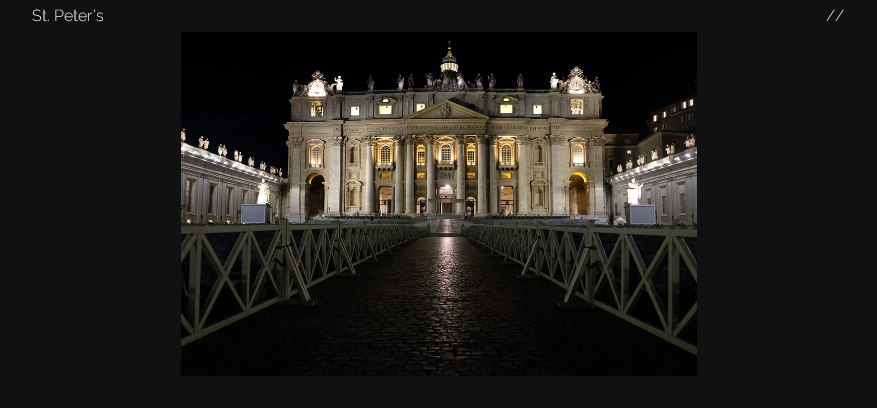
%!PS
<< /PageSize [877 408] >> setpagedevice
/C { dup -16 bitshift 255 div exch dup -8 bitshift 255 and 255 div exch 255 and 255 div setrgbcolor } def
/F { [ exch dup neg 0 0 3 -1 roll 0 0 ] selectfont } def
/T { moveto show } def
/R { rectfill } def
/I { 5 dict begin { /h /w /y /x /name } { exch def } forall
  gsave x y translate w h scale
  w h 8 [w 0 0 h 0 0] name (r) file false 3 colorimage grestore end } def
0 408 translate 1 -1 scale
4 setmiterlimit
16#111111 C
0 0 877 408 R
/Raleway-Light 16 F
16#FBFBFB C
(St. Peter's) 32 21 T
(//) 826 21 T
(1.rgb) 181 32 516 344 I
showpage
